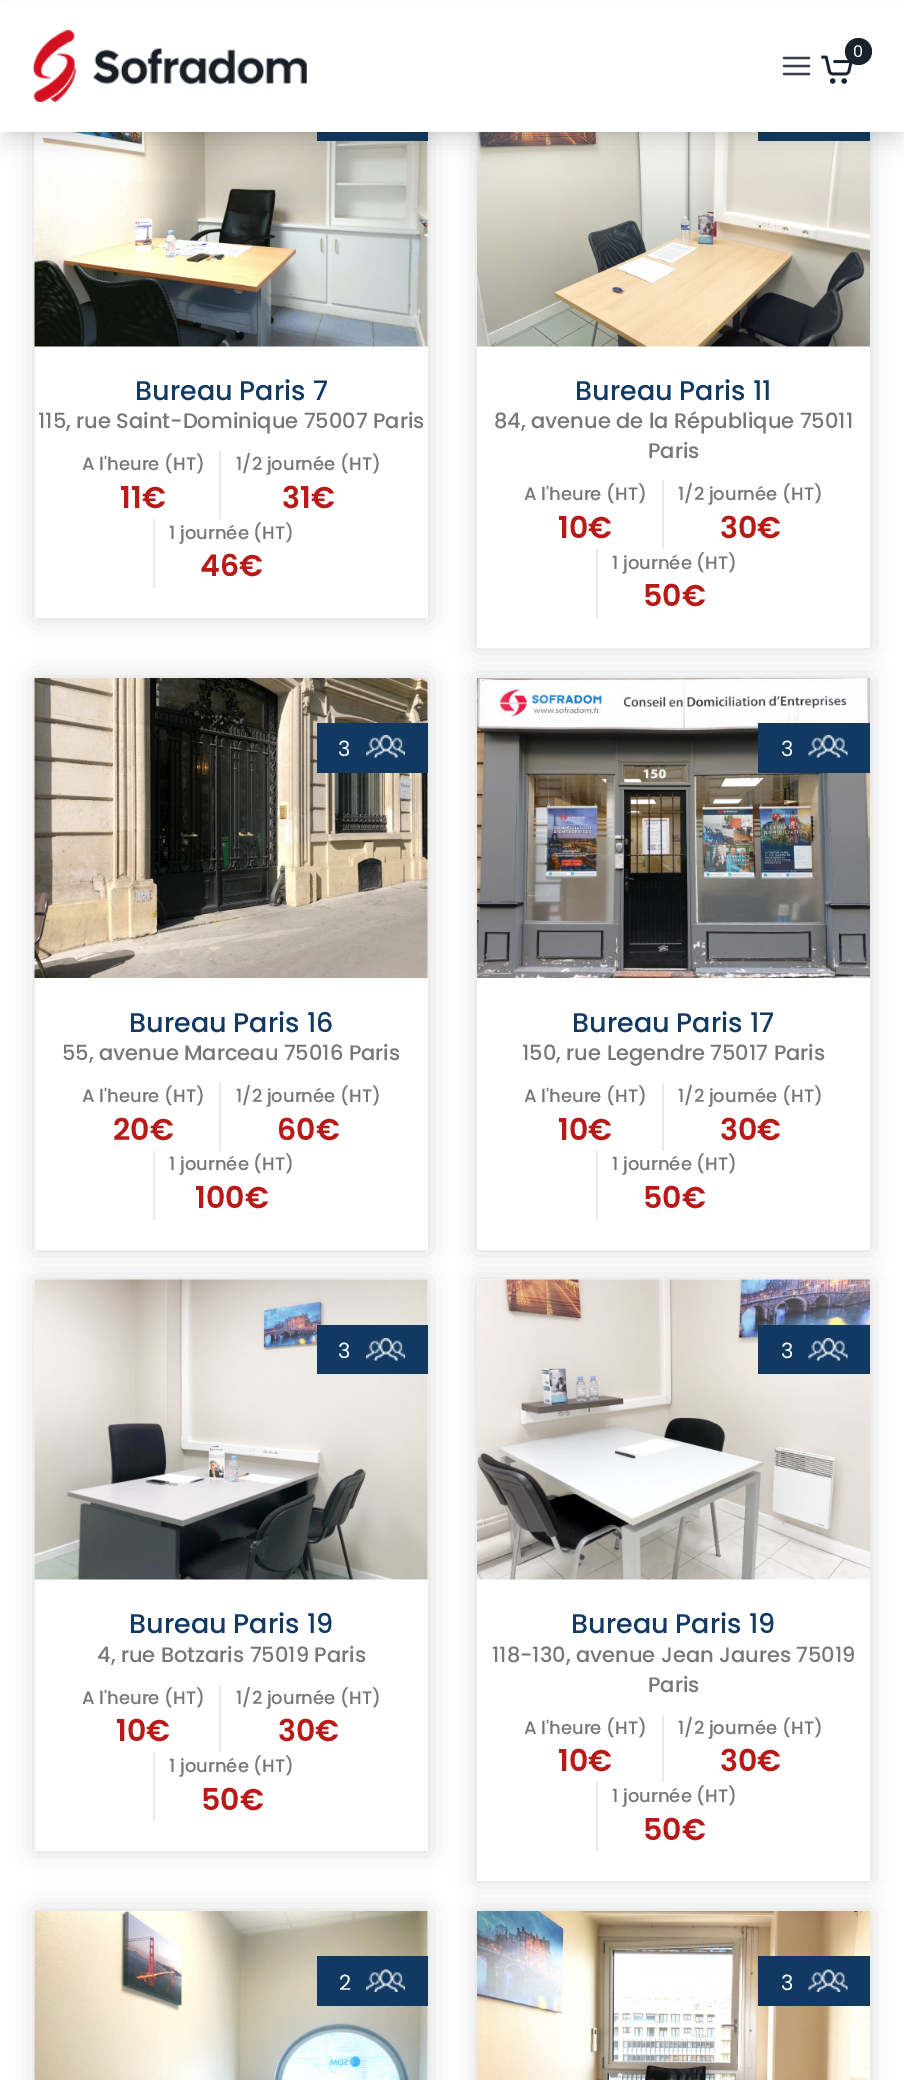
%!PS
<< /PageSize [904 2080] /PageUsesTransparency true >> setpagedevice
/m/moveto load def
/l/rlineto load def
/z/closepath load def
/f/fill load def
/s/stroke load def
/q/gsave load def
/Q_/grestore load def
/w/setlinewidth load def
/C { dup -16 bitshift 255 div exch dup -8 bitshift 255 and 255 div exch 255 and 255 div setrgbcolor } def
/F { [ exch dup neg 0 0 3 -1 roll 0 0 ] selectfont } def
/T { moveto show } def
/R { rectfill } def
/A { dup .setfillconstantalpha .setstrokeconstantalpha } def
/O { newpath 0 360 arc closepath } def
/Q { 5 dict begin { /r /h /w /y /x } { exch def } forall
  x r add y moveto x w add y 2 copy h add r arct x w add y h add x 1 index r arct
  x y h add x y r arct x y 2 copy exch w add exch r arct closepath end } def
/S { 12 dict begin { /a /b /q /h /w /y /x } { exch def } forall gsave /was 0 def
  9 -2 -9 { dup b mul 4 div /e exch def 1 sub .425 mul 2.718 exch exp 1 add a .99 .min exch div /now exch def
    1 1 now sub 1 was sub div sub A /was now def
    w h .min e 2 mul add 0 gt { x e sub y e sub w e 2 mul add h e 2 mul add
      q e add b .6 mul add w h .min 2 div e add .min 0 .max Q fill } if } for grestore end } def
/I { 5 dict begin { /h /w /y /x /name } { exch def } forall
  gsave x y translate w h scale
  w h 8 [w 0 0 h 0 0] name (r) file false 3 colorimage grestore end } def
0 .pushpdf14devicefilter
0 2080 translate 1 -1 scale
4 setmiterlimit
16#FFFFFF C
0 0 904 2080 R
q
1 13 m 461 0 l 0 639 l -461 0 l z 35 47 m 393 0 l 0 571 l -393 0 l z eoclip newpath
16#000000 C
35 47 393 571 0 11 .15 S
Q_
(3.rgb) 34 132 394 215 I
16#113962 C
317 132 111 9 R
q
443 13 m 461 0 l 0 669 l -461 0 l z 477 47 m 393 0 l 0 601 l -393 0 l z eoclip newpath
16#000000 C
477 47 393 601 0 11 .15 S
Q_
(4.rgb) 477 132 393 215 I
758 132 112 9 R
16#000000 C
6 12 893 120 0 4.5 .1 S
5 20 895 123 0 11 .1 S
16#FFFFFF C
0 4 904 128 R
(1.rgb) 33 30 274 72 I
(2.rgb) 821 55 32 29 I
16#19232D C
858.5 51.5 13.5 O f
/Poppins-Regular 16 F
16#FFFFFF C
(0) 853 57 T
16#374151 C
2.2 w
1 setlinecap
1 setlinejoin
784 58 m 25 0 l 784 66 m 25 0 l 784 74 m 25 0 l s
/Poppins-Medium 27 F
16#113962 C
(Bureau Paris 7) 135 400 T
/Poppins-Medium 21 F
16#777777 C
(115, rue Saint-Dominique 75007 Paris) 38 428 T
/Poppins-Medium 18 F
(A l'heure \(HT\)) 82 470 T
/Poppins-SemiBold 30 F
16#B91917 C
(11€) 120 508 T
16#EAEAEA C
219 450 2 69 R
/Poppins-Medium 18 F
16#777777 C
(1/2 journée \(HT\)) 236 470 T
/Poppins-SemiBold 30 F
16#B91917 C
(31€) 282 508 T
16#EAEAEA C
153 519 2 69 R
/Poppins-Medium 18 F
16#777777 C
(1 journée \(HT\)) 169 539 T
/Poppins-SemiBold 30 F
16#B91917 C
(46€) 200 576 T
/Poppins-Medium 27 F
16#113962 C
(Bureau Paris 11) 575 400 T
/Poppins-Medium 21 F
16#777777 C
(84, avenue de la République 75011) 494 428 T
(Paris) 648 458 T
/Poppins-Medium 18 F
(A l'heure \(HT\)) 524 500 T
/Poppins-SemiBold 30 F
16#B91917 C
(10€) 558 538 T
16#EAEAEA C
662 480 2 69 R
/Poppins-Medium 18 F
16#777777 C
(1/2 journée \(HT\)) 678 500 T
/Poppins-SemiBold 30 F
16#B91917 C
(30€) 720 538 T
16#EAEAEA C
596 549 2 69 R
/Poppins-Medium 18 F
16#777777 C
(1 journée \(HT\)) 612 569 T
/Poppins-SemiBold 30 F
16#B91917 C
(50€) 643 606 T
q
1 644 m 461 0 l 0 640 l -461 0 l z 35 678 m 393 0 l 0 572 l -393 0 l z eoclip newpath
16#000000 C
35 678 393 572 0 11 .15 S
Q_
(5.rgb) 34 678 394 300 I
16#113962 C
317 723 111 50 R
/Poppins-Regular 21 F
16#FFFFFF C
(3) 338 756 T
(6.rgb) 366 735 39 23 I
/Poppins-Medium 27 F
16#113962 C
(Bureau Paris 16) 129 1032 T
/Poppins-Medium 21 F
16#777777 C
(55, avenue Marceau 75016 Paris) 62 1060 T
/Poppins-Medium 18 F
(A l'heure \(HT\)) 82 1102 T
/Poppins-SemiBold 30 F
16#B91917 C
(20€) 113 1140 T
16#EAEAEA C
219 1083 2 68 R
/Poppins-Medium 18 F
16#777777 C
(1/2 journée \(HT\)) 236 1102 T
/Poppins-SemiBold 30 F
16#B91917 C
(60€) 277 1140 T
16#EAEAEA C
153 1151 2 69 R
/Poppins-Medium 18 F
16#777777 C
(1 journée \(HT\)) 169 1170 T
/Poppins-SemiBold 30 F
16#B91917 C
(100€) 195 1208 T
q
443 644 m 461 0 l 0 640 l -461 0 l z 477 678 m 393 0 l 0 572 l -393 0 l z eoclip newpath
16#000000 C
477 678 393 572 0 11 .15 S
Q_
(7.rgb) 477 678 393 300 I
16#113962 C
758 723 112 50 R
/Poppins-Regular 21 F
16#FFFFFF C
(3) 781 756 T
(8.rgb) 808 735 40 23 I
/Poppins-Medium 27 F
16#113962 C
(Bureau Paris 17) 572 1032 T
/Poppins-Medium 21 F
16#777777 C
(150, rue Legendre 75017 Paris) 522 1060 T
/Poppins-Medium 18 F
(A l'heure \(HT\)) 524 1102 T
/Poppins-SemiBold 30 F
16#B91917 C
(10€) 558 1140 T
16#EAEAEA C
662 1083 2 68 R
/Poppins-Medium 18 F
16#777777 C
(1/2 journée \(HT\)) 678 1102 T
/Poppins-SemiBold 30 F
16#B91917 C
(30€) 720 1140 T
16#EAEAEA C
596 1151 2 69 R
/Poppins-Medium 18 F
16#777777 C
(1 journée \(HT\)) 612 1170 T
/Poppins-SemiBold 30 F
16#B91917 C
(50€) 643 1208 T
q
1 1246 m 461 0 l 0 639 l -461 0 l z 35 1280 m 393 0 l 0 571 l -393 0 l z eoclip newpath
16#000000 C
35 1280 393 571 0 11 .15 S
Q_
(9.rgb) 34 1279 394 301 I
16#113962 C
317 1325 111 49 R
/Poppins-Regular 21 F
16#FFFFFF C
(3) 338 1358 T
(6.rgb) 366 1338 39 23 I
/Poppins-Medium 27 F
16#113962 C
(Bureau Paris 19) 129 1633 T
/Poppins-Medium 21 F
16#777777 C
(4, rue Botzaris 75019 Paris) 97 1662 T
/Poppins-Medium 18 F
(A l'heure \(HT\)) 82 1704 T
/Poppins-SemiBold 30 F
16#B91917 C
(10€) 116 1741 T
16#EAEAEA C
219 1685 2 67 R
/Poppins-Medium 18 F
16#777777 C
(1/2 journée \(HT\)) 236 1704 T
/Poppins-SemiBold 30 F
16#B91917 C
(30€) 278 1741 T
16#EAEAEA C
153 1752 2 69 R
/Poppins-Medium 18 F
16#777777 C
(1 journée \(HT\)) 169 1772 T
/Poppins-SemiBold 30 F
16#B91917 C
(50€) 201 1810 T
q
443 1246 m 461 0 l 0 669 l -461 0 l z 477 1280 m 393 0 l 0 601 l -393 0 l z eoclip newpath
16#000000 C
477 1280 393 601 0 11 .15 S
Q_
(10.rgb) 477 1279 393 301 I
16#113962 C
758 1325 112 49 R
/Poppins-Regular 21 F
16#FFFFFF C
(3) 781 1358 T
(8.rgb) 808 1338 40 23 I
/Poppins-Medium 27 F
16#113962 C
(Bureau Paris 19) 571 1633 T
/Poppins-Medium 21 F
16#777777 C
(118-130, avenue Jean Jaures 75019) 492 1662 T
(Paris) 648 1692 T
/Poppins-Medium 18 F
(A l'heure \(HT\)) 524 1734 T
/Poppins-SemiBold 30 F
16#B91917 C
(10€) 558 1771 T
16#EAEAEA C
662 1715 2 67 R
/Poppins-Medium 18 F
16#777777 C
(1/2 journée \(HT\)) 678 1734 T
/Poppins-SemiBold 30 F
16#B91917 C
(30€) 720 1771 T
16#EAEAEA C
596 1782 2 69 R
/Poppins-Medium 18 F
16#777777 C
(1 journée \(HT\)) 612 1802 T
/Poppins-SemiBold 30 F
16#B91917 C
(50€) 643 1840 T
16#000000 C
35 1911 393 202 0 11 .15 S
(11.rgb) 34 1911 394 169 I
16#113962 C
317 1956 111 50 R
/Poppins-Regular 21 F
16#FFFFFF C
(2) 339 1990 T
(12.rgb) 366 1969 39 23 I
16#000000 C
477 1911 393 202 0 11 .15 S
(13.rgb) 477 1911 393 169 I
16#113962 C
758 1956 112 50 R
16#FFFFFF C
(3) 781 1990 T
(14.rgb) 808 1969 40 23 I
.poppdf14devicefilter showpage
